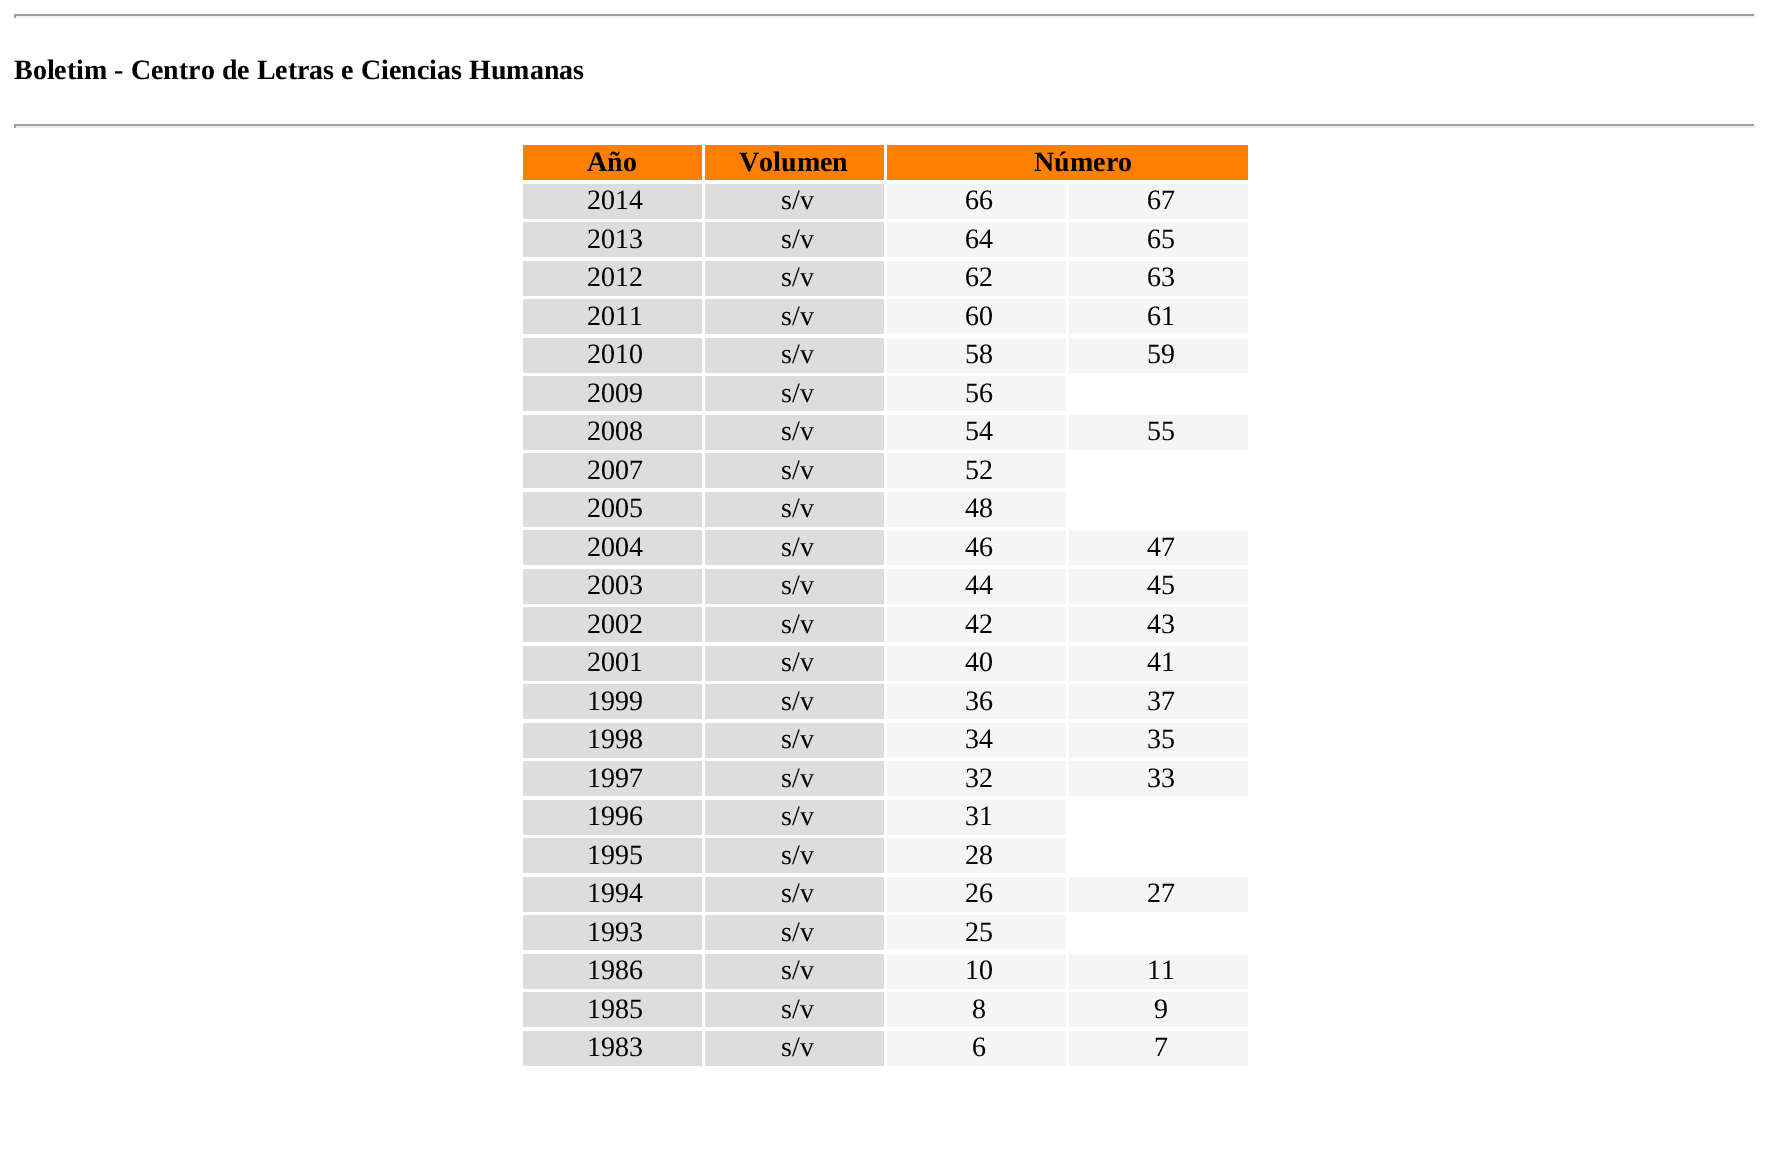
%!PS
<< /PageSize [1769 1155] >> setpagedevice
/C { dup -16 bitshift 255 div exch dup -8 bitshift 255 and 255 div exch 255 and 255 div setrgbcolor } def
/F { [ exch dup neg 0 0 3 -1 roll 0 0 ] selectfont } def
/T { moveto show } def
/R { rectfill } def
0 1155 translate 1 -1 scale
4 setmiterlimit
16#FFFFFF C
0 0 1769 1155 R
16#9F9F9F C
14 14 1741 2 R
16#EEEEEE C
1754 14 2 4 R
14 16 1741 2 R
16#9F9F9F C
14 14 2 4 R
/LiberationSerif-Bold 28 F
16#000000 C
(Boletim - Centro de Letras e Ciencias Humanas) 14 79 T
16#9F9F9F C
14 124 1741 2 R
16#EEEEEE C
1754 124 2 4 R
14 126 1741 2 R
16#9F9F9F C
14 124 2 4 R
16#FF8000 C
523 145 179 35 R
16#000000 C
(Año) 587 171 T
16#FF8000 C
705 145 179 35 R
16#000000 C
(Volumen) 739 171 T
16#FF8000 C
887 145 361 35 R
16#000000 C
(Número) 1034 171 T
16#DDDDDD C
523 184 179 35 R
/LiberationSerif-Regular 28 F
16#000000 C
(2014) 587 209 T
16#DDDDDD C
705 184 179 35 R
16#000000 C
(s/v) 781 209 T
16#F5F5F5 C
887 184 179 35 R
16#000000 C
(66) 965 209 T
16#F5F5F5 C
1069 184 179 35 R
16#000000 C
(67) 1147 209 T
16#DDDDDD C
523 222 179 35 R
16#000000 C
(2013) 587 248 T
16#DDDDDD C
705 222 179 35 R
16#000000 C
(s/v) 781 248 T
16#F5F5F5 C
887 222 179 35 R
16#000000 C
(64) 965 248 T
16#F5F5F5 C
1069 222 179 35 R
16#000000 C
(65) 1147 248 T
16#DDDDDD C
523 261 179 35 R
16#000000 C
(2012) 587 286 T
16#DDDDDD C
705 261 179 35 R
16#000000 C
(s/v) 781 286 T
16#F5F5F5 C
887 261 179 35 R
16#000000 C
(62) 965 286 T
16#F5F5F5 C
1069 261 179 35 R
16#000000 C
(63) 1147 286 T
16#DDDDDD C
523 299 179 35 R
16#000000 C
(2011) 587 325 T
16#DDDDDD C
705 299 179 35 R
16#000000 C
(s/v) 781 325 T
16#F5F5F5 C
887 299 179 35 R
16#000000 C
(60) 965 325 T
16#F5F5F5 C
1069 299 179 35 R
16#000000 C
(61) 1147 325 T
16#DDDDDD C
523 338 179 35 R
16#000000 C
(2010) 587 363 T
16#DDDDDD C
705 338 179 35 R
16#000000 C
(s/v) 781 363 T
16#F5F5F5 C
887 338 179 35 R
16#000000 C
(58) 965 363 T
16#F5F5F5 C
1069 338 179 35 R
16#000000 C
(59) 1147 363 T
16#DDDDDD C
523 376 179 35 R
16#000000 C
(2009) 587 402 T
16#DDDDDD C
705 376 179 35 R
16#000000 C
(s/v) 781 402 T
16#F5F5F5 C
887 376 179 35 R
16#000000 C
(56) 965 402 T
16#DDDDDD C
523 415 179 35 R
16#000000 C
(2008) 587 440 T
16#DDDDDD C
705 415 179 35 R
16#000000 C
(s/v) 781 440 T
16#F5F5F5 C
887 415 179 35 R
16#000000 C
(54) 965 440 T
16#F5F5F5 C
1069 415 179 35 R
16#000000 C
(55) 1147 440 T
16#DDDDDD C
523 453 179 35 R
16#000000 C
(2007) 587 479 T
16#DDDDDD C
705 453 179 35 R
16#000000 C
(s/v) 781 479 T
16#F5F5F5 C
887 453 179 35 R
16#000000 C
(52) 965 479 T
16#DDDDDD C
523 492 179 35 R
16#000000 C
(2005) 587 517 T
16#DDDDDD C
705 492 179 35 R
16#000000 C
(s/v) 781 517 T
16#F5F5F5 C
887 492 179 35 R
16#000000 C
(48) 965 517 T
16#DDDDDD C
523 530 179 35 R
16#000000 C
(2004) 587 556 T
16#DDDDDD C
705 530 179 35 R
16#000000 C
(s/v) 781 556 T
16#F5F5F5 C
887 530 179 35 R
16#000000 C
(46) 965 556 T
16#F5F5F5 C
1069 530 179 35 R
16#000000 C
(47) 1147 556 T
16#DDDDDD C
523 569 179 35 R
16#000000 C
(2003) 587 594 T
16#DDDDDD C
705 569 179 35 R
16#000000 C
(s/v) 781 594 T
16#F5F5F5 C
887 569 179 35 R
16#000000 C
(44) 965 594 T
16#F5F5F5 C
1069 569 179 35 R
16#000000 C
(45) 1147 594 T
16#DDDDDD C
523 607 179 35 R
16#000000 C
(2002) 587 633 T
16#DDDDDD C
705 607 179 35 R
16#000000 C
(s/v) 781 633 T
16#F5F5F5 C
887 607 179 35 R
16#000000 C
(42) 965 633 T
16#F5F5F5 C
1069 607 179 35 R
16#000000 C
(43) 1147 633 T
16#DDDDDD C
523 646 179 35 R
16#000000 C
(2001) 587 671 T
16#DDDDDD C
705 646 179 35 R
16#000000 C
(s/v) 781 671 T
16#F5F5F5 C
887 646 179 35 R
16#000000 C
(40) 965 671 T
16#F5F5F5 C
1069 646 179 35 R
16#000000 C
(41) 1147 671 T
16#DDDDDD C
523 684 179 35 R
16#000000 C
(1999) 587 710 T
16#DDDDDD C
705 684 179 35 R
16#000000 C
(s/v) 781 710 T
16#F5F5F5 C
887 684 179 35 R
16#000000 C
(36) 965 710 T
16#F5F5F5 C
1069 684 179 35 R
16#000000 C
(37) 1147 710 T
16#DDDDDD C
523 723 179 35 R
16#000000 C
(1998) 587 748 T
16#DDDDDD C
705 723 179 35 R
16#000000 C
(s/v) 781 748 T
16#F5F5F5 C
887 723 179 35 R
16#000000 C
(34) 965 748 T
16#F5F5F5 C
1069 723 179 35 R
16#000000 C
(35) 1147 748 T
16#DDDDDD C
523 761 179 35 R
16#000000 C
(1997) 587 787 T
16#DDDDDD C
705 761 179 35 R
16#000000 C
(s/v) 781 787 T
16#F5F5F5 C
887 761 179 35 R
16#000000 C
(32) 965 787 T
16#F5F5F5 C
1069 761 179 35 R
16#000000 C
(33) 1147 787 T
16#DDDDDD C
523 800 179 35 R
16#000000 C
(1996) 587 825 T
16#DDDDDD C
705 800 179 35 R
16#000000 C
(s/v) 781 825 T
16#F5F5F5 C
887 800 179 35 R
16#000000 C
(31) 965 825 T
16#DDDDDD C
523 838 179 35 R
16#000000 C
(1995) 587 864 T
16#DDDDDD C
705 838 179 35 R
16#000000 C
(s/v) 781 864 T
16#F5F5F5 C
887 838 179 35 R
16#000000 C
(28) 965 864 T
16#DDDDDD C
523 877 179 35 R
16#000000 C
(1994) 587 902 T
16#DDDDDD C
705 877 179 35 R
16#000000 C
(s/v) 781 902 T
16#F5F5F5 C
887 877 179 35 R
16#000000 C
(26) 965 902 T
16#F5F5F5 C
1069 877 179 35 R
16#000000 C
(27) 1147 902 T
16#DDDDDD C
523 915 179 35 R
16#000000 C
(1993) 587 941 T
16#DDDDDD C
705 915 179 35 R
16#000000 C
(s/v) 781 941 T
16#F5F5F5 C
887 915 179 35 R
16#000000 C
(25) 965 941 T
16#DDDDDD C
523 954 179 35 R
16#000000 C
(1986) 587 979 T
16#DDDDDD C
705 954 179 35 R
16#000000 C
(s/v) 781 979 T
16#F5F5F5 C
887 954 179 35 R
16#000000 C
(10) 965 979 T
16#F5F5F5 C
1069 954 179 35 R
16#000000 C
(11) 1147 979 T
16#DDDDDD C
523 992 179 35 R
16#000000 C
(1985) 587 1018 T
16#DDDDDD C
705 992 179 35 R
16#000000 C
(s/v) 781 1018 T
16#F5F5F5 C
887 992 179 35 R
16#000000 C
(8) 972 1018 T
16#F5F5F5 C
1069 992 179 35 R
16#000000 C
(9) 1154 1018 T
16#DDDDDD C
523 1031 179 35 R
16#000000 C
(1983) 587 1056 T
16#DDDDDD C
705 1031 179 35 R
16#000000 C
(s/v) 781 1056 T
16#F5F5F5 C
887 1031 179 35 R
16#000000 C
(6) 972 1056 T
16#F5F5F5 C
1069 1031 179 35 R
16#000000 C
(7) 1154 1056 T
showpage
